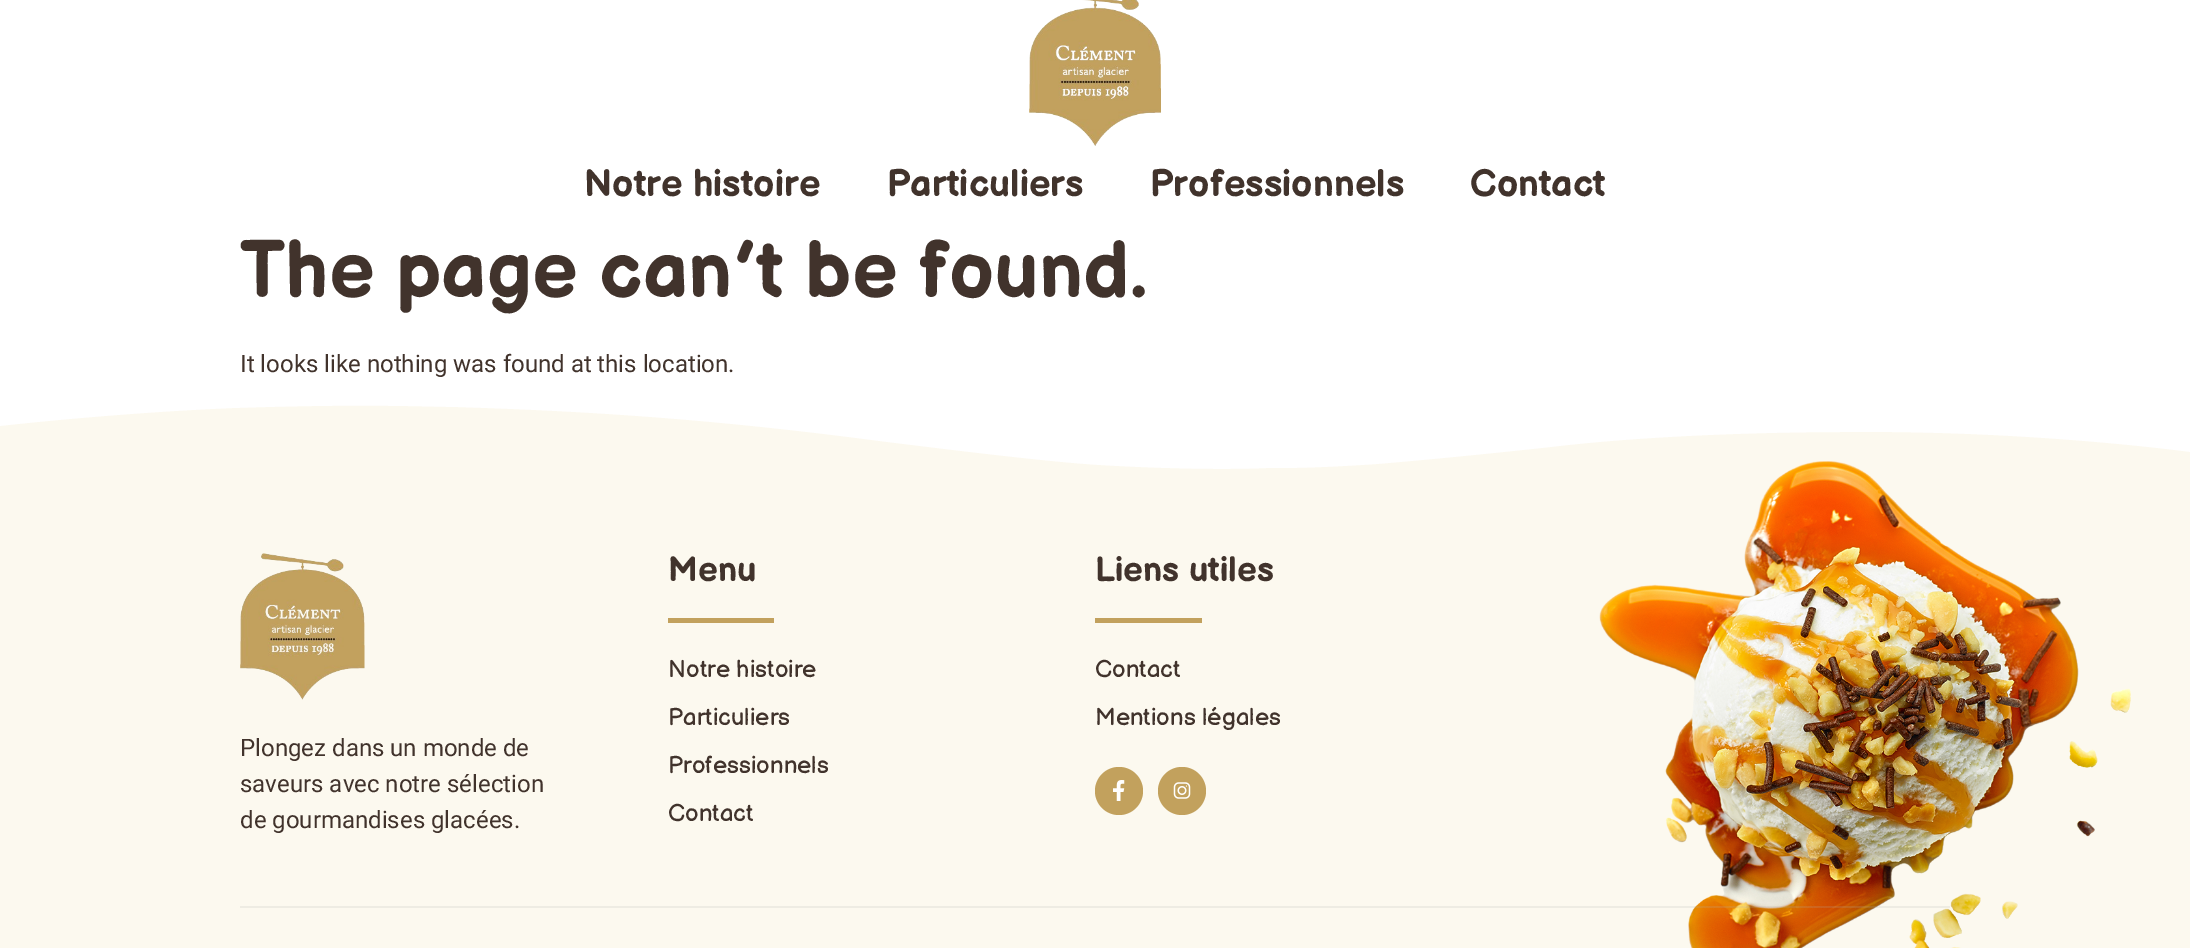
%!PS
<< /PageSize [2190 948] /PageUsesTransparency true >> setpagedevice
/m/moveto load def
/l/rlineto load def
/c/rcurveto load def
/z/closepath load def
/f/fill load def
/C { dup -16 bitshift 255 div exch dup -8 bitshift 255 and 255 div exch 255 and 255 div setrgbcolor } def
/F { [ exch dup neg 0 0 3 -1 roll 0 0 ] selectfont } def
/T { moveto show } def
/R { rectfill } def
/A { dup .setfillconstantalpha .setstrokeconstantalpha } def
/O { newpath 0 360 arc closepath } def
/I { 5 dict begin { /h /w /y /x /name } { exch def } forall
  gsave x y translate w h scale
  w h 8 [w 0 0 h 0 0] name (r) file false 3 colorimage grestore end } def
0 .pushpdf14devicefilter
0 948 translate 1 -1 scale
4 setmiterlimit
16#FFFFFF C
0 0 2190 948 R
(1.rgb) 1029 0 132 146 I
/BalsamiqSans-Bold 37.5 F
16#41332C C
(Notre histoire) 584 196 T
(Particuliers) 887 196 T
(Professionnels) 1150 196 T
(Contact) 1470 196 T
/BalsamiqSans-Bold 79.5 F
(The page can’t be found.) 240 297 T
/Roboto-Regular 24 F
(It looks like nothing was found at this location.) 240 372 T
16#FCF9EF C
0 405 2190 543 R
(2.rgb) 1599 461 532 487 I
16#FFFFFF C
458 407 m 130 4 256 12 422 34 c 65 8 169 21 221 24 c 51 3 115 5 165 3 c 23 0 50 0 110 -4 c 60 -5 128 -12 174 -17 c 91 -11 208 -15 294 -15 c 189 -2 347 20 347 20 c 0 -50 l -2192 0 l 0 24 l 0 0 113 -13 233 -18 c 119 -4 175 -2 226 -1 c z f
(3.rgb) 240 553 125 147 I
16#41332C C
(Plongez dans un monde de) 240 756 T
(saveurs avec notre sélection) 240 792 T
(de gourmandises glacées.) 240 828 T
/BalsamiqSans-Bold 34.5 F
(Menu) 668 581 T
16#C2A15D C
668 618 106 5 R
/BalsamiqSans-Regular 24 F
16#41332C C
(Notre histoire) 668 677 T
(Particuliers) 668 725 T
(Professionnels) 668 773 T
(Contact) 668 821 T
/BalsamiqSans-Bold 34.5 F
(Liens utiles) 1095 581 T
16#C2A15D C
1095 618 107 5 R
/BalsamiqSans-Regular 24 F
16#41332C C
(Contact) 1095 677 T
(Mentions légales) 1095 725 T
16#C2A15D C
1119 791 24 O f
(4.rgb) 1113 780 12 21 I
1182 791 24 O f
(5.rgb) 1173 782 18 17 I
0.18 A
16#ADB1AE C
240 906 1710 2 R
.poppdf14devicefilter showpage
